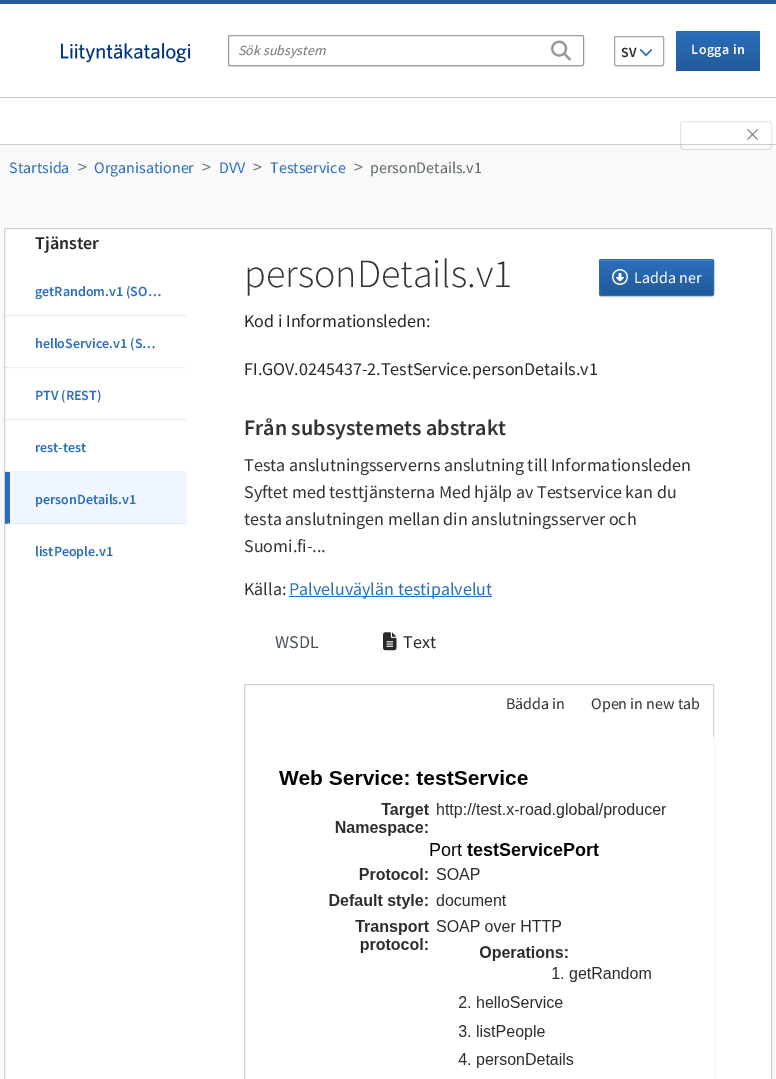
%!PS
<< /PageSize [776 1079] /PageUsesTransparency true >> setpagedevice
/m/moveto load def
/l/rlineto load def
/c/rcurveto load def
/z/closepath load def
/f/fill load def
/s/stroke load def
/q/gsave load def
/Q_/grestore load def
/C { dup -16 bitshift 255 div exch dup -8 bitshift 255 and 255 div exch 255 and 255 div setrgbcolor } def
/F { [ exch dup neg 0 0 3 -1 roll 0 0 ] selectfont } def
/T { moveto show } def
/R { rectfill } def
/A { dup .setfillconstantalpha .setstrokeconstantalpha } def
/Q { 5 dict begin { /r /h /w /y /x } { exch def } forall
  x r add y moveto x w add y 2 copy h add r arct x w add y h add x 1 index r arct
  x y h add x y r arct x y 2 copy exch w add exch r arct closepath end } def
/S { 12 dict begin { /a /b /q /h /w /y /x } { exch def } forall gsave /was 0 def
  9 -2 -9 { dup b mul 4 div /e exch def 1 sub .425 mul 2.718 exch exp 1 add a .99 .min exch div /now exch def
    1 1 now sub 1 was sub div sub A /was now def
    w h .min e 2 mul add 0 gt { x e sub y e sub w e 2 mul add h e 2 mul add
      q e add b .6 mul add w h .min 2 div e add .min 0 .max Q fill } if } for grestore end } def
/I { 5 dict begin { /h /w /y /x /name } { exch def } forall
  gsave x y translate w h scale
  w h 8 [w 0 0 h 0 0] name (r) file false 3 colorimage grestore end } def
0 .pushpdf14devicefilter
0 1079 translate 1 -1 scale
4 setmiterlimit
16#F9F9F9 C
0 0 776 1079 R
16#FFFFFF C
0 4 776 93 R
16#235A9A C
0 0 776 4 R
16#C9CDCF C
0 97 776 1 R
(1.rgb) 60 43 131 20 I
16#DDDDDD C
[1 1] 0 setdash
228 66.5 m 356 0 l s
16#989C9F C
[] 0 setdash
228.5 35.5 355 30 1.5 Q s
/SourceSansPro-Italic 14 F
16#757575 C
(Sök subsystem) 238 55 T
(2.rgb) 551 40 20 21 I
16#000000 C
614 37 50 30 2 .5 .07 S
16#FFFFFF C
614.5 36.5 49 29 1.5 Q q f Q_
16#A5A7B0 C
s
/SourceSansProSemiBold-SemiBold 14 F
16#282828 C
(SV) 621 57 T
(3.rgb) 640 49 12 7 I
q 676 31 84 40 2 Q clip newpath
<< /ShadingType 2 /ColorSpace /DeviceRGB /Coords [718 71 718 31] /Extend [true true] /Function << /FunctionType 2 /Domain [0 1] /C0 [.137 .353 .604] /C1 [.165 .431 .733] /N 1 >> >> shfill Q_
16#FFFFFF C
691 54 m .5 0 (Logga in) ashow
16#C9CDCF C
0 144 776 1 R
16#FFFFFF C
0 98 776 46 R
0.1 A
16#000000 C
680.5 121.5 91 28 3.5 Q s
1 A
(4.rgb) 747 129 11 11 I
/SourceSansPro-Regular 16 F
16#2A6EBB C
(Startsida) 9 173 T
/SourceSansPro-Regular 18 F
16#6C757D C
(>) 78 173 T
/SourceSansPro-Regular 16 F
16#2A6EBB C
(Organisationer) 94 173 T
/SourceSansPro-Regular 18 F
16#6C757D C
(>) 202 173 T
/SourceSansPro-Regular 16 F
16#2A6EBB C
(DVV) 219 173 T
/SourceSansPro-Regular 18 F
16#6C757D C
(>) 253 173 T
/SourceSansPro-Regular 16 F
16#2A6EBB C
(Testservice) 270 173 T
/SourceSansPro-Regular 18 F
16#6C757D C
(>) 354 173 T
/SourceSansPro-Regular 16 F
16#5F686D C
(personDetails.v1) 370 173 T
16#FFFFFF C
4.5 228.5 m 767 0 l 0 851 l -767 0 l z q f Q_
16#CED2D5 C
s
/SourceSansProSemiBold-SemiBold 18 F
16#282828 C
(Tjänster) 35 249 T
16#DDDDDD C
[1 1] 0 setdash
5 315.5 m 182 0 l s
/SourceSansProSemiBold-SemiBold 14 F
16#2A6EBB C
(getRandom.v1 \(SO…) 35 296 T
16#DDDDDD C
5 367.5 m 182 0 l s
16#2A6EBB C
(helloService.v1 \(S…) 35 348 T
16#DDDDDD C
5 419.5 m 182 0 l s
16#2A6EBB C
(PTV \(REST\)) 35 400 T
16#DDDDDD C
5 471.5 m 182 0 l s
16#2A6EBB C
(rest-test) 35 452 T
16#F0F6FF C
6 472 181 52 R
16#DDDDDD C
5 523.5 m 182 0 l s
16#2A6EBB C
5 524 m 0 -52 l 5 0 l 0 51 l z f
(personDetails.v1) 35 504 T
(listPeople.v1) 35 556 T
/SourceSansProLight-Light 40 F
16#333333 C
(personDetails.v1) 244 287 T
/SourceSansPro-Regular 18 F
16#282828 C
(Kod i Informationsleden:) 244 327 T
(FI.GOV.0245437-2.TestService.personDetails.v1) 244 375 T
16#000000 C
599 260 115 37 2 .5 .07 S
q
599 259 115 37 2 Q clip newpath
q 599 260 m 115 0 l 0 35 l -115 0 l z clip newpath
<< /ShadingType 2 /ColorSpace /DeviceRGB /Coords [657 295 657 260] /Extend [true true] /Function << /FunctionType 2 /Domain [0 1] /C0 [.137 .353 .604] /C1 [.165 .431 .733] /N 1 >> >> shfill Q_
Q_
16#4A84C5 C
601 261 m 112 0 l 0 1 l 0 -1 0 -2 -1 -2 c -111 0 l -1 0 -1 1 -1 2 c 0 -1 0 -1 1 -1 c z f
16#2A6EBB C
[] 0 setdash
599.5 259.5 114 36 1.5 Q s
(5.rgb) 612 269 16 16 I
/SourceSansPro-Regular 16 F
16#FFFFFF C
(Ladda ner) 634 283 T
/SourceSansProSemiBold-SemiBold 22 F
16#333333 C
(Från subsystemets abstrakt) 244 435 T
/SourceSansPro-Regular 18 F
(Testa anslutningsserverns anslutning till Informationsleden) 244 471 T
(Syftet med testtjänsterna Med hjälp av Testservice kan du) 244 498 T
(testa anslutningen mellan din anslutningsserver och) 244 525 T
(Suomi.fi-...) 244 552 T
(Källa:) 244 595 T
16#2A6EBB C
289 596 203 1 R
(Palveluväylän testipalvelut) 289 595 T
16#495057 C
(WSDL) 275 648 T
(6.rgb) 383 632 14 19 I
16#282828 C
(Text) 403 648 T
16#CED2D5 C
244.5 684.5 469 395 rectstroke
/SourceSansPro-Regular 16 F
16#333333 C
(Bädda in) 506 709 T
(Open in new tab) 591 709 T
(7.rgb) 279 737 435 342 I
.poppdf14devicefilter showpage
